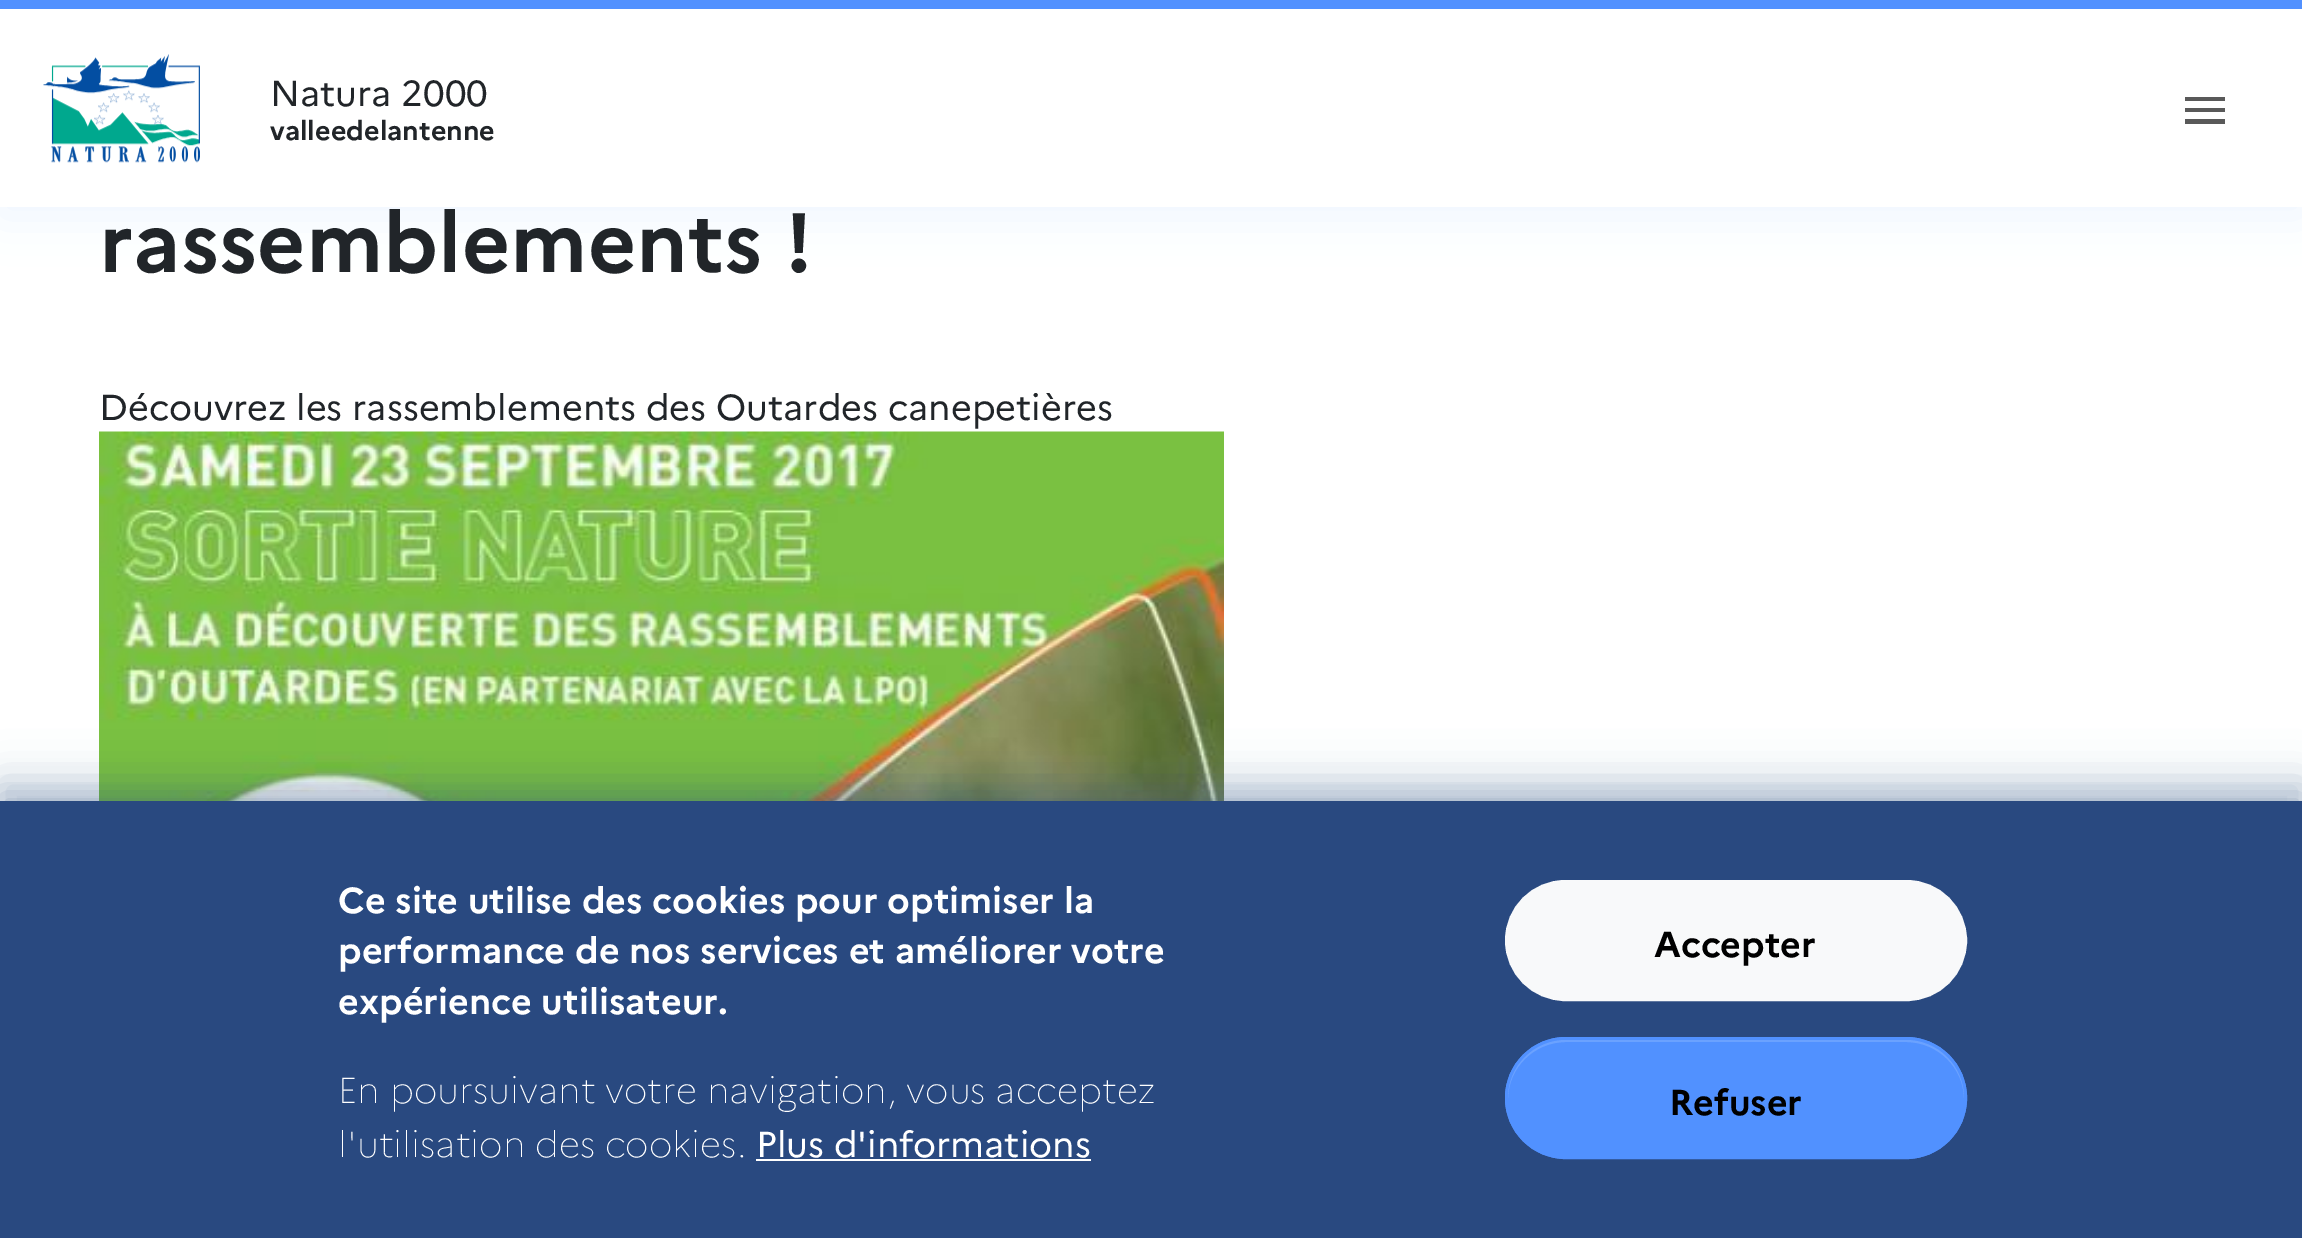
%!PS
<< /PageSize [2302 1238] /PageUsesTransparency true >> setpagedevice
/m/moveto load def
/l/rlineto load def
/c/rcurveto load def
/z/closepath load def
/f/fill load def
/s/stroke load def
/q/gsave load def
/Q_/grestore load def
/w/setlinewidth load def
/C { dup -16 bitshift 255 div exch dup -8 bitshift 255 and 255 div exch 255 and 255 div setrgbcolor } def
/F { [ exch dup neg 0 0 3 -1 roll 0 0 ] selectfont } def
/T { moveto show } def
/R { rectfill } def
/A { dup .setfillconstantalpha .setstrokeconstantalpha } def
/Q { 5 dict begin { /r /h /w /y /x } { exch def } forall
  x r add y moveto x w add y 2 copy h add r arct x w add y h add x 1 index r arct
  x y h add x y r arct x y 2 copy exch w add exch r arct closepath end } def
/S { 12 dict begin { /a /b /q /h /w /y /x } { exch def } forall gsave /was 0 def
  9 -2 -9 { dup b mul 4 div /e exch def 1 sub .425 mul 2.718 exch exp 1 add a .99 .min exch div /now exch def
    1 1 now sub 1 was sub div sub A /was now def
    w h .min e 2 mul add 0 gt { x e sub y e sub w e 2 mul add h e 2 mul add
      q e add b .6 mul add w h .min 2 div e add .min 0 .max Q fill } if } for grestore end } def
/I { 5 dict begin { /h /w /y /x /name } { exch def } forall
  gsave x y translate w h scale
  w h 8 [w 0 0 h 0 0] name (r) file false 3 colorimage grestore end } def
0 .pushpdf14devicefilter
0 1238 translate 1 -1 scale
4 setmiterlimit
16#FFFFFF C
0 0 2302 1238 R
16#5191FF C
0 9 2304 207 0 22.5 .1 S
16#FFFFFF C
0 9 2302 198 R
16#5191FF C
0 0 2302 9 R
(1.rgb) 43 54 157 109 I
/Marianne-Regular 36 F
16#212529 C
(Natura 2000) 270 106 T
/Marianne-Bold 27 F
(valleedelantenne) 270 140 T
16#595959 C
2185 97 m 40 0 l 0 4 l -40 0 l z 2185 108 m 40 0 l 0 4 l -40 0 l z 2185 119 m 40 0 l 0 5 l -40 0 l z f
/Marianne-Bold 84 F
16#212529 C
(rassemblements !) 99 272 T
/Marianne-Regular 36 F
(Découvrez les rassemblements des Outardes canepetières) 99 420 T
(2.rgb) 99 431 1125 370 I
16#294980 C
0 794 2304 439 0 16 .3 S
0 779 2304 438 0 22.5 .2 S
0 801 2302 437 R
/Marianne-Bold 36 F
16#FFFFFF C
(Ce site utilise des cookies pour optimiser la) 338 913 T
(performance de nos services et améliorer votre) 338 963 T
(expérience utilisateur.) 338 1014 T
/Marianne-Thin 36 F
(En poursuivant votre navigation, vous acceptez) 338 1103 T
(l'utilisation des cookies.) 338 1157 T
/Marianne-Regular 36 F
(Plus d'informations) 756 1157 T
756 1159 335 2 R
16#F8F9FA C
1506 881 460 119 59.5 Q q f Q_
2 w
s
/Marianne-Bold 36 F
16#000000 C
(Accepter) 1654 957 T
16#5191FF C
1505 1037 462 122 61 Q f
16#6BA2FF C
1566 1042 m 340 0 l 32 0 58 26 58 57 c 0 -1 l 0 -32 -26 -58 -58 -58 c -340 0 l -32 0 -58 26 -58 58 c 0 1 l 0 -31 26 -57 58 -57 c z f
16#5191FF C
1506 1038 460 120 60 Q s
16#000000 C
(Refuser) 1669 1115 T
.poppdf14devicefilter showpage
